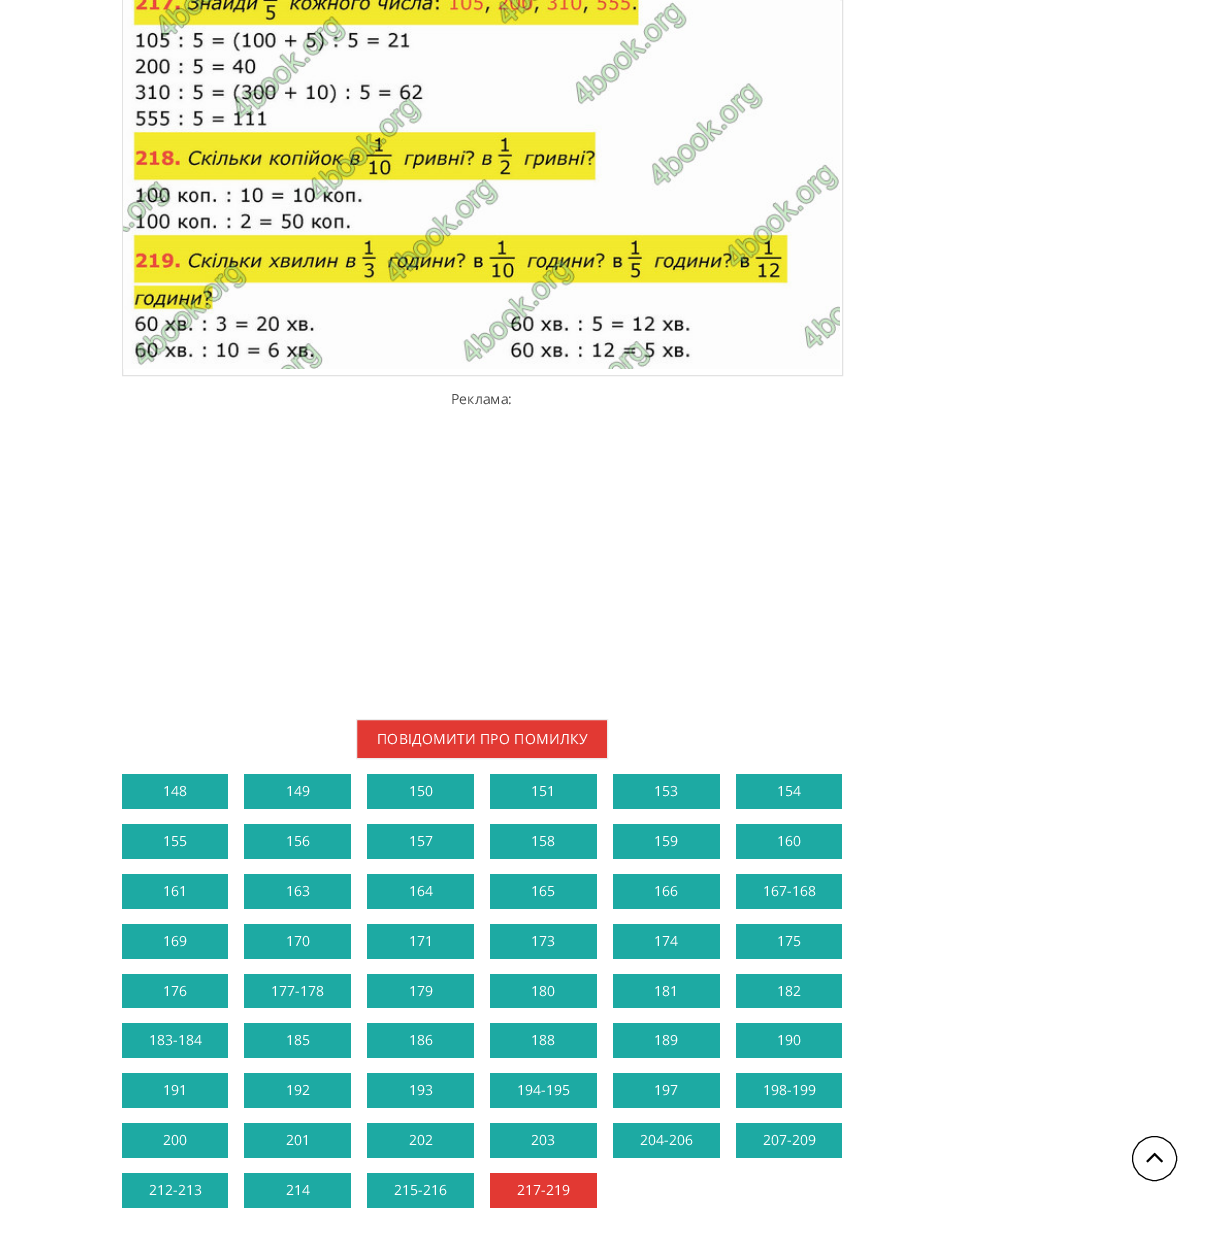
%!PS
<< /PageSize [1217 1256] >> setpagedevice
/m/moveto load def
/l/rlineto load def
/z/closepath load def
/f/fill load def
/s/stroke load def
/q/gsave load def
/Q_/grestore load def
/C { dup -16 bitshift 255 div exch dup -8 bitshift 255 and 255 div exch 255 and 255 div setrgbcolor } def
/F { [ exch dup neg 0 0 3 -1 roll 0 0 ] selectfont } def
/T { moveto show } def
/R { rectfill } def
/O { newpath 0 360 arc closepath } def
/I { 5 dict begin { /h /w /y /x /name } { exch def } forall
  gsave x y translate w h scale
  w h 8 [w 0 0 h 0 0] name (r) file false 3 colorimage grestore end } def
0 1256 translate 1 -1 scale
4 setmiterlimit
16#FFFFFF C
0 0 1217 1256 R
16#E2E2E2 C
122.5 -.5 720 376 rectstroke
(1.rgb) 123 0 717 369 I
/OpenSans-Regular 14 F
16#4C4C4C C
(Реклама:) 451 404 T
16#E23933 C
356.5 719.5 m 251 0 l 0 39 l -251 0 l z q f Q_
16#ECECEC C
s
16#FFFFFF C
377 744 m .3 0 (ПОВІДОМИТИ ПРО ПОМИЛКУ) ashow
16#1DAAA3 C
122 774 106 35 R
16#FFFFFF C
(148) 163 796 T
16#1DAAA3 C
244 774 107 35 R
16#FFFFFF C
(149) 286 796 T
16#1DAAA3 C
367 774 107 35 R
16#FFFFFF C
(150) 409 796 T
16#1DAAA3 C
490 774 107 35 R
16#FFFFFF C
(151) 531 796 T
16#1DAAA3 C
613 774 107 35 R
16#FFFFFF C
(153) 654 796 T
16#1DAAA3 C
736 774 106 35 R
16#FFFFFF C
(154) 777 796 T
16#1DAAA3 C
122 824 106 35 R
16#FFFFFF C
(155) 163 846 T
16#1DAAA3 C
244 824 107 35 R
16#FFFFFF C
(156) 286 846 T
16#1DAAA3 C
367 824 107 35 R
16#FFFFFF C
(157) 409 846 T
16#1DAAA3 C
490 824 107 35 R
16#FFFFFF C
(158) 531 846 T
16#1DAAA3 C
613 824 107 35 R
16#FFFFFF C
(159) 654 846 T
16#1DAAA3 C
736 824 106 35 R
16#FFFFFF C
(160) 777 846 T
16#1DAAA3 C
122 874 106 35 R
16#FFFFFF C
(161) 163 896 T
16#1DAAA3 C
244 874 107 35 R
16#FFFFFF C
(163) 286 896 T
16#1DAAA3 C
367 874 107 35 R
16#FFFFFF C
(164) 409 896 T
16#1DAAA3 C
490 874 107 35 R
16#FFFFFF C
(165) 531 896 T
16#1DAAA3 C
613 874 107 35 R
16#FFFFFF C
(166) 654 896 T
16#1DAAA3 C
736 874 106 35 R
16#FFFFFF C
(167-168) 763 896 T
16#1DAAA3 C
122 924 106 35 R
16#FFFFFF C
(169) 163 946 T
16#1DAAA3 C
244 924 107 35 R
16#FFFFFF C
(170) 286 946 T
16#1DAAA3 C
367 924 107 35 R
16#FFFFFF C
(171) 409 946 T
16#1DAAA3 C
490 924 107 35 R
16#FFFFFF C
(173) 531 946 T
16#1DAAA3 C
613 924 107 35 R
16#FFFFFF C
(174) 654 946 T
16#1DAAA3 C
736 924 106 35 R
16#FFFFFF C
(175) 777 946 T
16#1DAAA3 C
122 974 106 34 R
16#FFFFFF C
(176) 163 996 T
16#1DAAA3 C
244 974 107 34 R
16#FFFFFF C
(177-178) 271 996 T
16#1DAAA3 C
367 974 107 34 R
16#FFFFFF C
(179) 409 996 T
16#1DAAA3 C
490 974 107 34 R
16#FFFFFF C
(180) 531 996 T
16#1DAAA3 C
613 974 107 34 R
16#FFFFFF C
(181) 654 996 T
16#1DAAA3 C
736 974 106 34 R
16#FFFFFF C
(182) 777 996 T
16#1DAAA3 C
122 1023 106 35 R
16#FFFFFF C
(183-184) 149 1045 T
16#1DAAA3 C
244 1023 107 35 R
16#FFFFFF C
(185) 286 1045 T
16#1DAAA3 C
367 1023 107 35 R
16#FFFFFF C
(186) 409 1045 T
16#1DAAA3 C
490 1023 107 35 R
16#FFFFFF C
(188) 531 1045 T
16#1DAAA3 C
613 1023 107 35 R
16#FFFFFF C
(189) 654 1045 T
16#1DAAA3 C
736 1023 106 35 R
16#FFFFFF C
(190) 777 1045 T
16#1DAAA3 C
122 1073 106 35 R
16#FFFFFF C
(191) 163 1095 T
16#1DAAA3 C
244 1073 107 35 R
16#FFFFFF C
(192) 286 1095 T
16#1DAAA3 C
367 1073 107 35 R
16#FFFFFF C
(193) 409 1095 T
16#1DAAA3 C
490 1073 107 35 R
16#FFFFFF C
(194-195) 517 1095 T
16#1DAAA3 C
613 1073 107 35 R
16#FFFFFF C
(197) 654 1095 T
16#1DAAA3 C
736 1073 106 35 R
16#FFFFFF C
(198-199) 763 1095 T
16#1DAAA3 C
122 1123 106 35 R
16#FFFFFF C
(200) 163 1145 T
16#1DAAA3 C
244 1123 107 35 R
16#FFFFFF C
(201) 286 1145 T
16#1DAAA3 C
367 1123 107 35 R
16#FFFFFF C
(202) 409 1145 T
16#1DAAA3 C
490 1123 107 35 R
16#FFFFFF C
(203) 531 1145 T
16#1DAAA3 C
613 1123 107 35 R
16#FFFFFF C
(204-206) 640 1145 T
16#1DAAA3 C
736 1123 106 35 R
16#FFFFFF C
(207-209) 763 1145 T
16#1DAAA3 C
122 1173 106 35 R
16#FFFFFF C
(212-213) 149 1195 T
16#1DAAA3 C
244 1173 107 35 R
16#FFFFFF C
(214) 286 1195 T
16#1DAAA3 C
367 1173 107 35 R
16#FFFFFF C
(215-216) 394 1195 T
16#E23933 C
490 1173 107 35 R
16#FFFFFF C
(217-219) 517 1195 T
16#000000 C
1154.5 1158.5 22 O s
(2.rgb) 1146 1152 17 11 I
showpage
